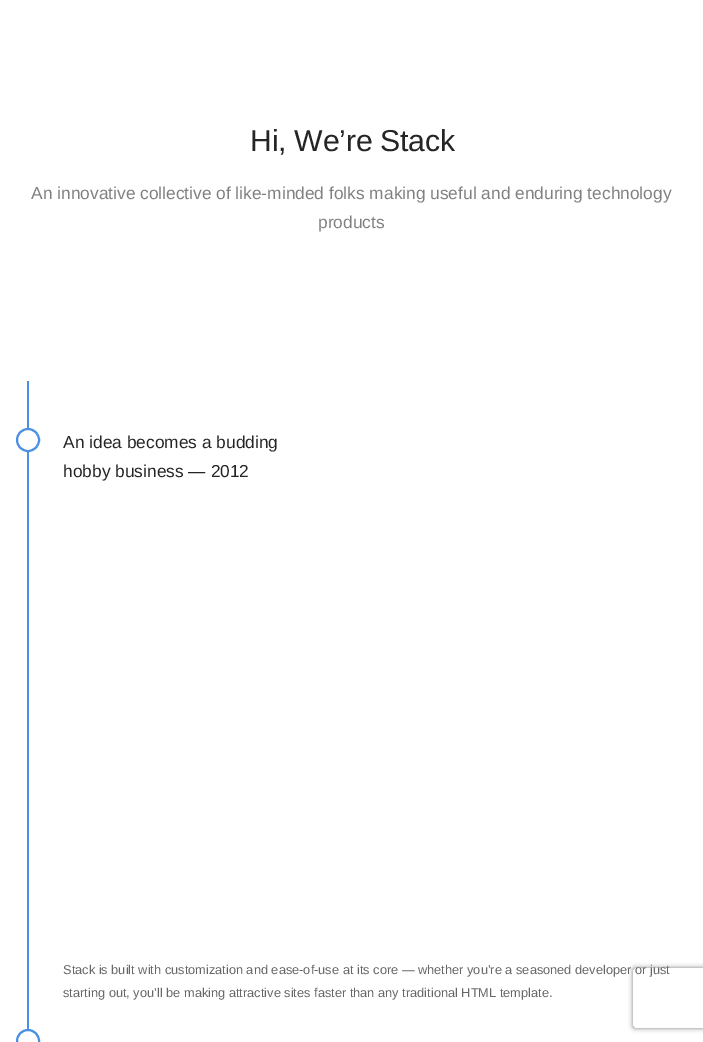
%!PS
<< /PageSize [703 1042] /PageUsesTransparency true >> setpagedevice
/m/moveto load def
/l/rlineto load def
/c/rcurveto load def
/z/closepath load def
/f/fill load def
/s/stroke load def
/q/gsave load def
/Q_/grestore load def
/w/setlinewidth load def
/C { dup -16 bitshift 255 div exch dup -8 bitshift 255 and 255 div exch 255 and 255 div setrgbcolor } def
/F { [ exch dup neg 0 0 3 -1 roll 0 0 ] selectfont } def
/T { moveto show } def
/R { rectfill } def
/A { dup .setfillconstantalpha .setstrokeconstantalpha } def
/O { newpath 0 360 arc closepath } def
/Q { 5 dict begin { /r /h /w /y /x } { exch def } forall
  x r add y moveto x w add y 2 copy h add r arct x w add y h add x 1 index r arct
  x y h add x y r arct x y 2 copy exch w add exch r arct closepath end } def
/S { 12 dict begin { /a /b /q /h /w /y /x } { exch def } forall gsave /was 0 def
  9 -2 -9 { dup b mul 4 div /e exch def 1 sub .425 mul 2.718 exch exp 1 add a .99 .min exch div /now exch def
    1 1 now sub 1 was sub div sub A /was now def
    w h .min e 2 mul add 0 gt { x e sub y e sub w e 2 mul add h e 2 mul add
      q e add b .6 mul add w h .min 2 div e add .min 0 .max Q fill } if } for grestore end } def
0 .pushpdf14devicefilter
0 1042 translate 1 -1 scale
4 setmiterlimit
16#FFFFFF C
0 0 703 1042 R
/LiberationSans-Regular 30.25 F
16#252525 C
250 151 m -.25 0 (Hi, We’re Stack) ashow
/LiberationSans-Regular 17.35 F
16#808080 C
(An innovative collective of like-minded folks making useful and enduring technology) 31 199 T
(products) 318 228 T
16#4A90E2 C
27 381 2 649 R
16#FFFFFF C
28 440 11 O q f Q_
16#4A90E2 C
2 w
s
16#252525 C
(An idea becomes a budding) 63 448 T
(hobby business — 2012) 63 477 T
/LiberationSans-Regular 12.8 F
16#666666 C
(Stack is built with customization and ease-of-use at its core — whether you’re a seasoned developer or just) 63 974 T
(starting out, you’ll be making attractive sites faster than any traditional HTML template.) 63 997 T
16#FFFFFF C
28 1041 11 O q f Q_
16#4A90E2 C
s
q
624 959 m 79 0 l 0 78 l -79 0 l z 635 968 m 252 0 l 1 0 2 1 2 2 c 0 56 l 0 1 -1 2 -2 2 c -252 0 l -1 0 -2 -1 -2 -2 c 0 -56 l 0 -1 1 -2 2 -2 c z eoclip newpath
16#808080 C
633 968 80 60 2 2.5 1 S
Q_
.poppdf14devicefilter showpage
